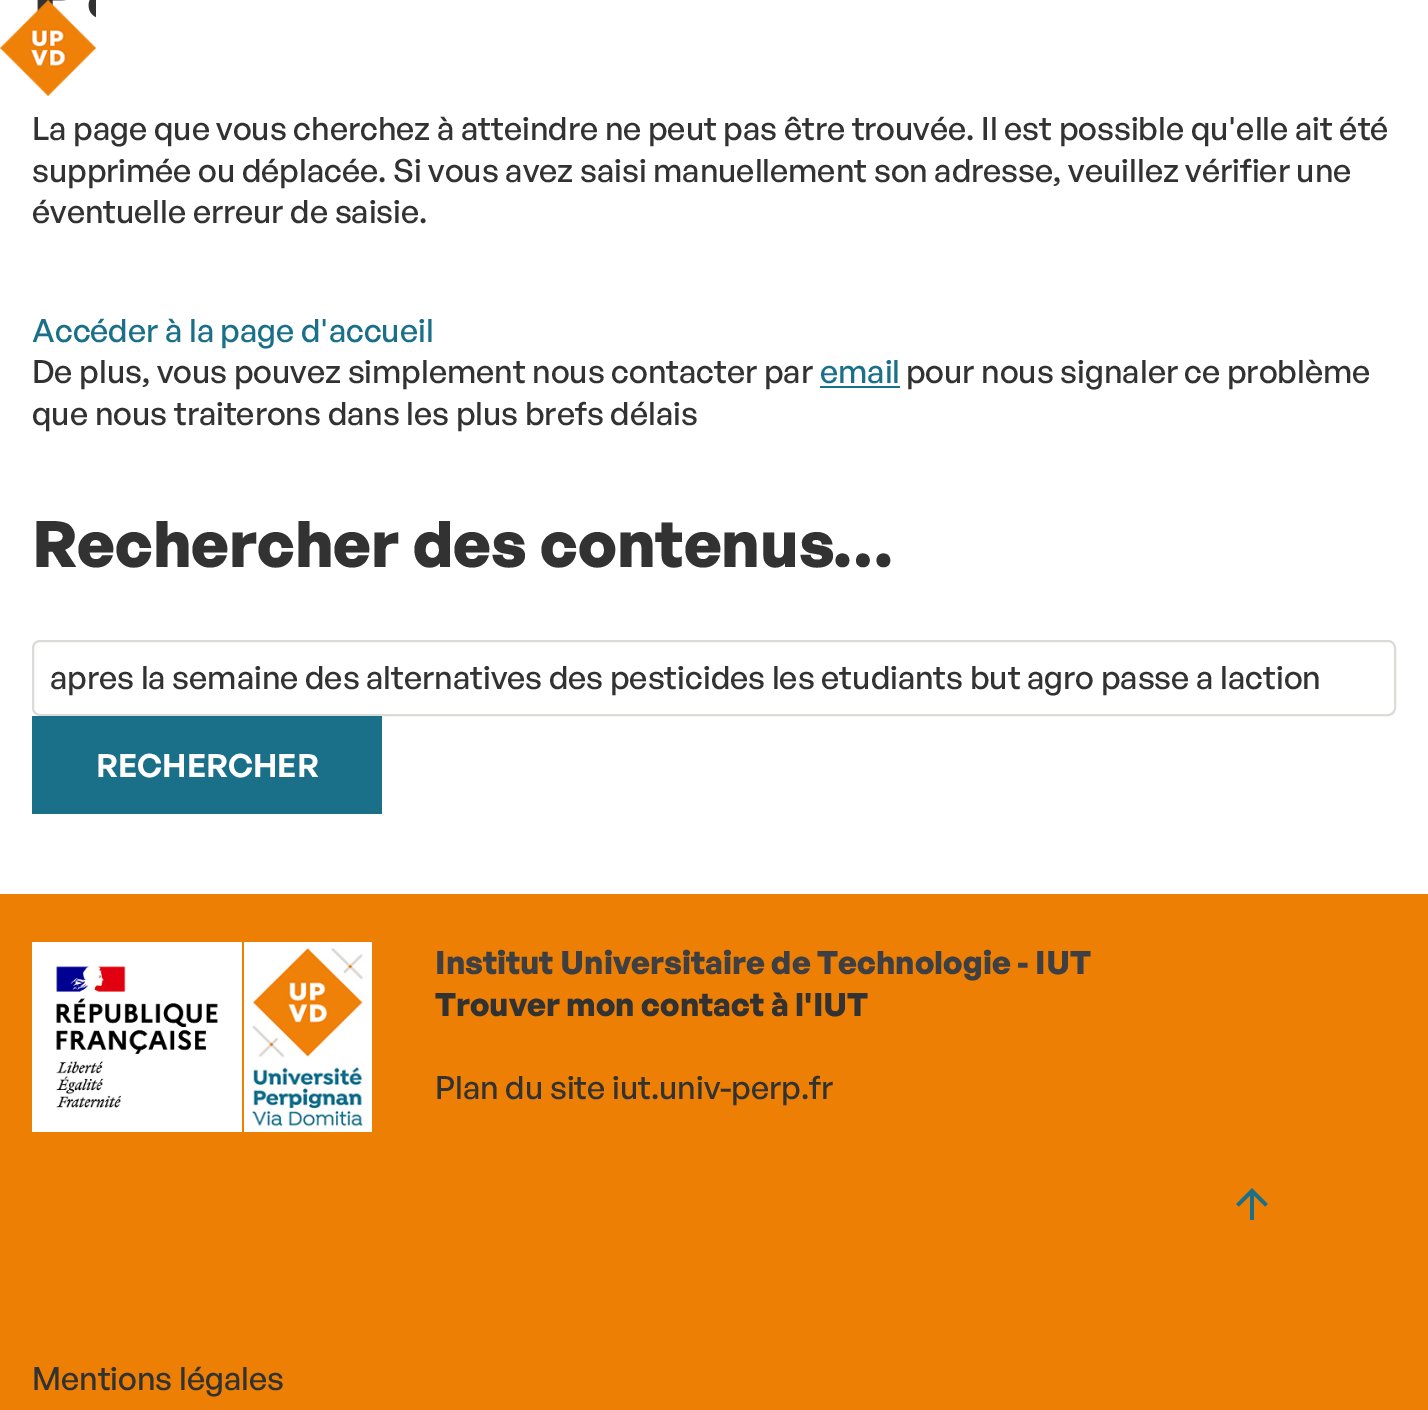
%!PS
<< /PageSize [1428 1410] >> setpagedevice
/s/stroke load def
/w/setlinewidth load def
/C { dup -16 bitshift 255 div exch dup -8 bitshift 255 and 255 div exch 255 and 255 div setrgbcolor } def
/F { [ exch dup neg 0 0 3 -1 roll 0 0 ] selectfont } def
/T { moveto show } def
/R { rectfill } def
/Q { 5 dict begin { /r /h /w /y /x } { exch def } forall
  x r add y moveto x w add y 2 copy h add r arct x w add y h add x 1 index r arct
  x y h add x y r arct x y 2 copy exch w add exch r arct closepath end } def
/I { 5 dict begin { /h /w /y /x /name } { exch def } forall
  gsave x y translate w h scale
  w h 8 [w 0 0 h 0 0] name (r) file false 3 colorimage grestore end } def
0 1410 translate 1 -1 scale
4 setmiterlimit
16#FFFFFF C
0 0 1428 1410 R
(1.rgb) 0 0 96 96 I
/GeneralSans-Medium 32 F
16#323232 C
(La page que vous cherchez à atteindre ne peut pas être trouvée. Il est possible qu'elle ait été) 32 140 T
(supprimée ou déplacée. Si vous avez saisi manuellement son adresse, veuillez vérifier une) 32 182 T
(éventuelle erreur de saisie.) 32 223 T
16#1B7089 C
(Accéder à la page d'accueil) 32 342 T
16#323232 C
(De plus, vous pouvez simplement nous contacter par) 32 383 T
16#1B7089 C
(email) 820 383 T
820 386 80 2 R
16#323232 C
(pour nous signaler ce problème) 906 383 T
(que nous traiterons dans les plus brefs délais) 32 425 T
/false-Bold 64 F
(Rechercher des contenus…) 32 567 T
16#DDDBD7 C
2 w
33 641 1362 74 7 Q s
/GeneralSans-Medium 32 F
16#323232 C
(apres la semaine des alternatives des pesticides les etudiants but agro passe a laction) 50 689 T
16#1B7089 C
32 716 350 98 R
/GeneralSans-SemiBold 32 F
16#FFFFFF C
(RECHERCHER) 96 777 T
16#EE7F05 C
0 894 1428 516 R
(2.rgb) 32 942 210 190 I
(3.rgb) 244 942 128 190 I
/false-Bold 32 F
16#3E3F42 C
(Institut Universitaire de Technologie - IUT) 435 974 T
16#323232 C
(Trouver mon contact à l'IUT) 435 1016 T
/GeneralSans-Medium 32 F
(Plan du site iut.univ-perp.fr) 435 1099 T
(Mentions légales) 32 1390 T
(4.rgb) 1236 1188 32 32 I
showpage
